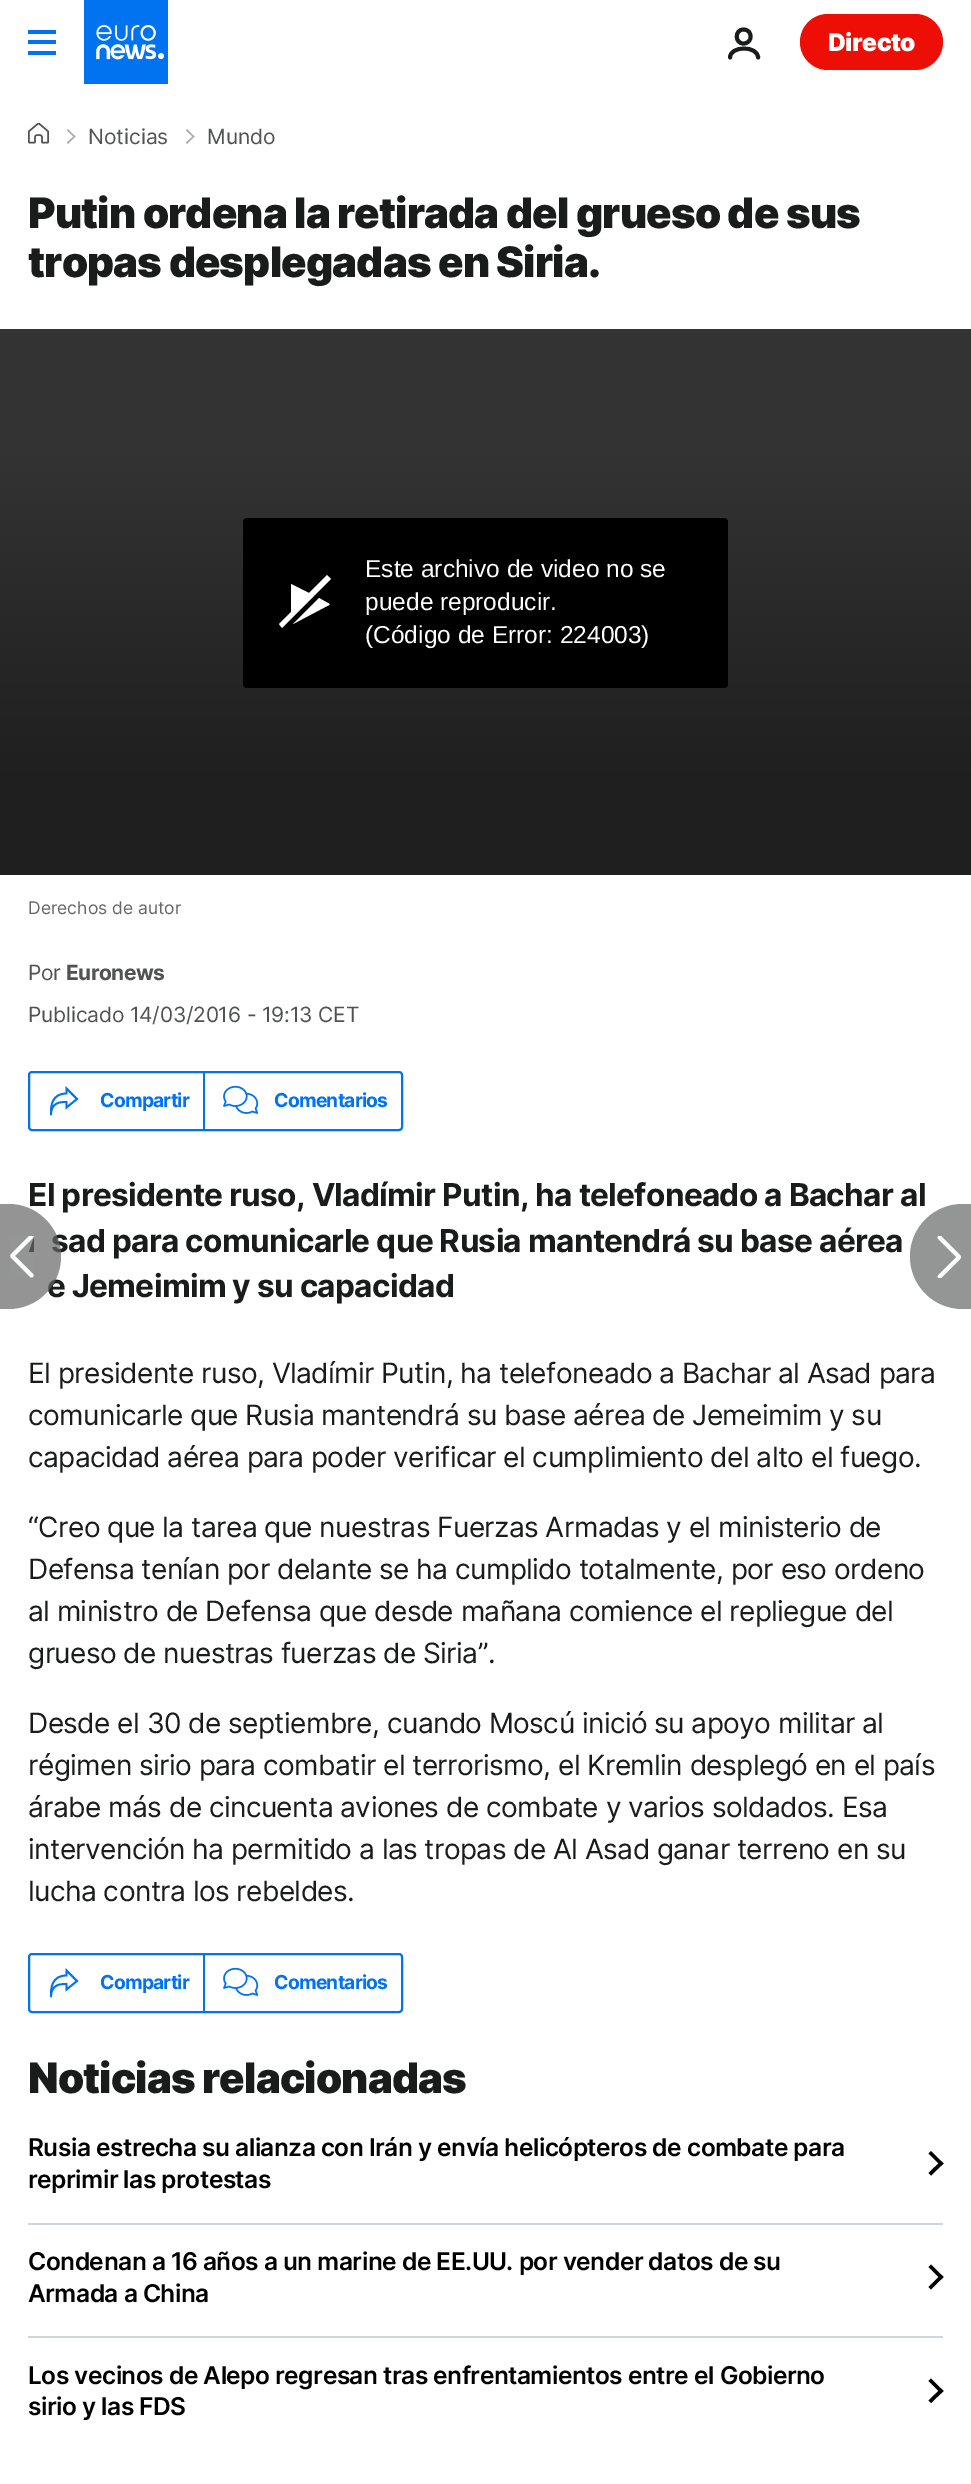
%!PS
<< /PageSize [971 2484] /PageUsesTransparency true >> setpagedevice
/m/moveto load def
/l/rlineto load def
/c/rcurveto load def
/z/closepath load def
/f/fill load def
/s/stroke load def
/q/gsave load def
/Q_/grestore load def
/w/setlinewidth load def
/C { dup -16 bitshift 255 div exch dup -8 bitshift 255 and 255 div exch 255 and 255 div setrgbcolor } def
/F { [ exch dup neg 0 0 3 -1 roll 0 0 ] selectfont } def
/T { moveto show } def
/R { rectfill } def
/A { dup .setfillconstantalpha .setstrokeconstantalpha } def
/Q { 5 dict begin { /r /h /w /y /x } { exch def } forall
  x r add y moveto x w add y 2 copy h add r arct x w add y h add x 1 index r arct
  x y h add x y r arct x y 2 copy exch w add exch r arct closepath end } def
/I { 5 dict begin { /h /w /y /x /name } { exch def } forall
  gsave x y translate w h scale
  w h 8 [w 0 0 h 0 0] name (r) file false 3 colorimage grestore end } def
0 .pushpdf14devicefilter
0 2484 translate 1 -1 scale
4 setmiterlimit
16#FFFFFF C
0 0 971 2484 R
16#0172F0 C
28 30 28 4 R
28 40 28 4 R
28 51 28 4 R
(1.rgb) 84 0 84 84 I
16#1A1B1B C
3.9 w
1 setlinecap
1 setlinejoin
730 57.5 m 0 -12 28 -12 28 0 c 743.5 43.5 m 9.5 0 9.5 -14 0 -14 c -9 0 -9 14 0 14 c z s
16#ED0E05 C
800 14 143 56 28 Q f
/Inter-Black 24.5 F
16#FFFFFF C
828 51 m -.5 0 (Directo) ashow
(2.rgb) 28 123 21 21 I
16#ABADAE C
68 129 m 7.5 7.5 l -1 1 l -7.5 -7 l z f
74.5 135.5 m 1 1 l -7.5 7.5 l -1 -1.5 l z f
/Inter-Regular 21 F
16#515252 C
(Noticias) 88 144 T
16#ABADAE C
187 129 m 7.5 7.5 l -1 1 l -7.5 -7 l z f
193.5 135.5 m 1 1 l -7.5 7.5 l -1 -1.5 l z f
16#515252 C
(Mundo) 207 144 T
/Inter-Black 42 F
16#1A1B1B C
28 228 m -.85 0 (Putin ordena la retirada del grueso de sus) ashow
28 277 m -.85 0 (tropas desplegadas en Siria.) ashow
16#333333 C
0 329 971 126 R
q 0 455 m 971 0 l 0 420 l -971 0 l z clip newpath
<< /ShadingType 2 /ColorSpace /DeviceRGB /Coords [486 455 486 875] /Extend [true true] /Function << /FunctionType 3 /Domain [0 1] /Functions [<< /FunctionType 2 /Domain [0 1] /C0 [.2 .2 .2] /C1 [.122 .122 .122] /N 1 >> << /FunctionType 2 /Domain [0 1] /C0 [.122 .122 .122] /C1 [.122 .122 .122] /N 1 >>] /Bounds [.77] /Encode [0 1 0 1] >> >> shfill Q_
16#000000 C
243 518 485 170 4 Q f
16#FFFFFF C
329 605 m -36 19 l 26 -26 l 10 6 12 6 10 7 c z 327 575 m -18 18 l -18 -9 l 0 28 l -12 12 l 3 4 l 49 -49 l z f
/LiberationSans-Regular 24.5 F
(Este archivo de video no se) 365 577 T
(puede reproducir.) 365 610 T
(\(Código de Error: 224003\)) 365 643 T
/Inter-Regular 17.5 F
16#666767 C
(Derechos de autor) 28 914 T
/Inter-Regular 21 F
16#515252 C
28 980 m -.5 0 (Por) ashow
/Inter-Bold 21 F
66 980 m -.5 0 (Euronews) ashow
/Inter-Regular 21 F
28 1022 m -.2 0 (Publicado 14/03/2016 - 19:13 CET) ashow
16#0172F0 C
2 w
0 setlinecap
0 setlinejoin
29 1072 373 58 3 Q s
1.8 w
1 setlinecap
66.5 1093.5 m -14.5 0 -16 12 -15.5 21.5 c 0 -13 9.5 -13 15.5 -13 c 0 5.5 l 10.5 -8.5 l -10.5 -10.5 l z s
/Inter-Bold 19.25 F
100 1107 m -.75 0 (Compartir) ashow
203 1073 2 56 R
(3.rgb) 223 1085 36 29 I
274 1107 m -.75 0 (Comentarios) ashow
/Inter-Bold 31.5 F
16#1A1B1B C
28 1206 m -.63 0 (El presidente ruso, Vladímir Putin, ha telefoneado a Bachar al) ashow
51 1252 m -.63 0 (sad para comunicarle que Rusia mantendrá su base aérea) ashow
47 1297 m -.63 0 (e Jemeimim y su capacidad) ashow
/Inter-Regular 28 F
28 1383 m -.55 0 (El presidente ruso, Vladímir Putin, ha telefoneado a Bachar al Asad para) ashow
28 1425 m -.55 0 (comunicarle que Rusia mantendrá su base aérea de Jemeimim y su) ashow
28 1467 m -.55 0 (capacidad aérea para poder verificar el cumplimiento del alto el fuego.) ashow
28 1537 m -.55 0 (“Creo que la tarea que nuestras Fuerzas Armadas y el ministerio de) ashow
28 1579 m -.55 0 (Defensa tenían por delante se ha cumplido totalmente, por eso ordeno) ashow
28 1621 m -.55 0 (al ministro de Defensa que desde mañana comience el repliegue del) ashow
28 1663 m -.55 0 (grueso de nuestras fuerzas de Siria”.) ashow
28 1733 m -.55 0 (Desde el 30 de septiembre, cuando Moscú inició su apoyo militar al) ashow
28 1775 m -.55 0 (régimen sirio para combatir el terrorismo, el Kremlin desplegó en el país) ashow
28 1817 m -.55 0 (árabe más de cincuenta aviones de combate y varios soldados. Esa) ashow
28 1859 m -.55 0 (intervención ha permitido a las tropas de Al Asad ganar terreno en su) ashow
28 1901 m -.55 0 (lucha contra los rebeldes.) ashow
16#0172F0 C
2 w
0 setlinecap
29 1954 373 58 3 Q s
1.8 w
1 setlinecap
66.5 1975.5 m -14.5 0 -16 12 -15.5 21.5 c 0 -13 9.5 -13 15.5 -13 c 0 5.5 l 10.5 -8.5 l -10.5 -10.5 l z s
/Inter-Bold 19.25 F
100 1989 m -.75 0 (Compartir) ashow
203 1955 2 56 R
(3.rgb) 223 1967 36 29 I
274 1989 m -.75 0 (Comentarios) ashow
/Inter-Black 42 F
16#1A1B1B C
28 2093 m -.85 0 (Noticias relacionadas) ashow
/Inter-SemiBold 24.5 F
16#000000 C
28 2156 m -.5 0 (Rusia estrecha su alianza con Irán y envía helicópteros de combate para) ashow
931 2151 m 12.5 12.5 l -2.5 2.5 l -12.5 -12.5 l z f
941 2161 m 2.5 2.5 l -12.5 12 l -2.5 -2.5 l z f
28 2188 m -.5 0 (reprimir las protestas) ashow
16#CDD6DB C
28 2223 915 2 R
16#000000 C
28 2270 m -.5 0 (Condenan a 16 años a un marine de EE.UU. por vender datos de su) ashow
931 2264.5 m 12.5 12.5 l -2.5 2.5 l -12.5 -12.5 l z f
941 2274.5 m 2.5 2.5 l -12.5 12.5 l -2.5 -2.5 l z f
28 2302 m -.5 0 (Armada a China) ashow
16#CDD6DB C
28 2336 915 2 R
16#000000 C
28 2384 m -.5 0 (Los vecinos de Alepo regresan tras enfrentamientos entre el Gobierno) ashow
931 2378.5 m 12.5 12.5 l -2.5 2.5 l -12.5 -12.5 l z f
941 2388.5 m 2.5 2.5 l -12.5 12 l -2.5 -2.5 l z f
28 2415 m -.5 0 (sirio y las FDS) ashow
0.7 A
16#666767 C
0 1204 m 8.5 0 l 29 0 52.5 23.5 52.5 52.5 c 0 29 -23.5 52.5 -52.5 52.5 c -8.5 0 l z f
1 A
(4.rgb) 10 1236 24 42 I
16#949595 C
962.5 1204 m 8.5 0 l 0 105 l -8.5 0 l -29 0 -52.5 -23.5 -52.5 -52.5 c 0 -29 23.5 -52.5 52.5 -52.5 c z f
(5.rgb) 937 1236 24 42 I
.poppdf14devicefilter showpage
